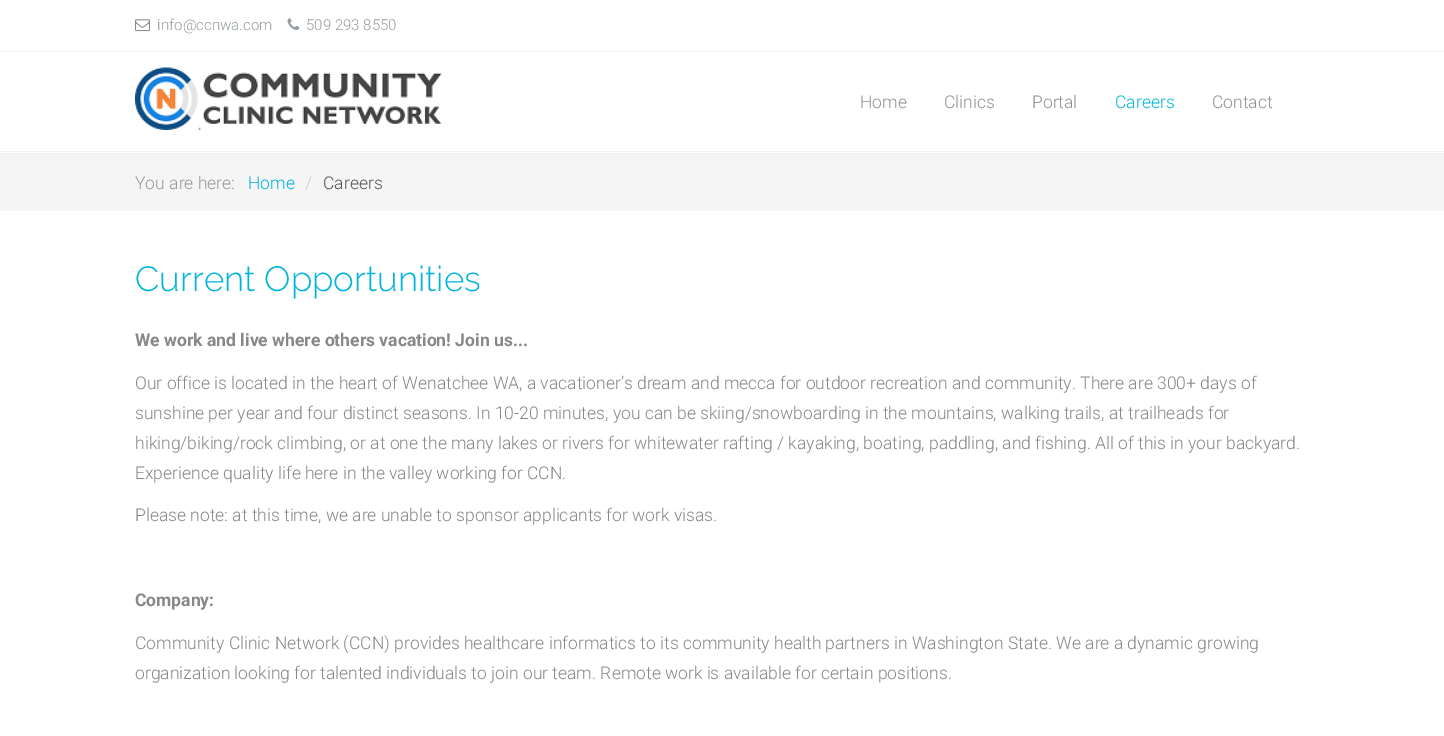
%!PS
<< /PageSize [1444 736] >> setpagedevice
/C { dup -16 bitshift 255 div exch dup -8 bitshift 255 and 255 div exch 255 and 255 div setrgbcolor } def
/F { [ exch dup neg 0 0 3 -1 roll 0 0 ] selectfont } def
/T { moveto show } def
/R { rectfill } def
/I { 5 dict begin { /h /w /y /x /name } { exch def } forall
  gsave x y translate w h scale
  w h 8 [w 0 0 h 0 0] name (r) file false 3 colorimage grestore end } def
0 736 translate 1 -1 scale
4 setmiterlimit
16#FFFFFF C
0 0 1444 736 R
16#F2F2F2 C
0 51 1444 1 R
(1.rgb) 135 19 15 13 I
/Roboto-Light 15 F
16#888888 C
(i) 157 30 T
16#949BA1 C
(nfo@ccnwa.com) 161 30 T
(2.rgb) 287 18 13 12 I
(509 293 8550) 306 30 T
16#F2F2F2 C
0 151 1444 1 R
(3.rgb) 135 67 307 63 I
/Roboto-Light 17.5 F
16#919191 C
(Home) 860 108 T
(Clinics) 944 108 T
(Portal) 1032 108 T
16#00B4DC C
(Careers) 1115 108 T
16#919191 C
(Contact) 1212 108 T
16#F5F5F5 C
0 154 1444 57 R
16#EEEEEE C
0 153 1444 1 R
16#999999 C
(You are here:) 135 189 T
16#00B4DC C
(Home) 248 189 T
16#CCCCCC C
(/) 305 189 T
16#555555 C
(Careers) 323 189 T
/Raleway-Light 35 F
16#00B4DC C
(Current Opportunities) 135 291 T
/Roboto-Bold 17.5 F
16#888888 C
(We work and live where others vacation! Join us...) 135 346 T
/Roboto-Light 17.5 F
(Our office is located in the heart of Wenatchee WA, a vacationer’s dream and mecca for outdoor recreation and community. There are 300+ days of) 135 389 T
(sunshine per year and four distinct seasons. In 10-20 minutes, you can be skiing/snowboarding in the mountains, walking trails, at trailheads for) 135 419 T
(hiking/biking/rock climbing, or at one the many lakes or rivers for whitewater rafting / kayaking, boating, paddling, and fishing. All of this in your backyard.) 135 449 T
(Experience quality life here in the valley working for CCN.) 135 479 T
(Please note: at this time, we are unable to sponsor applicants for work visas.) 135 521 T
/Roboto-Bold 17.5 F
(Company:) 135 606 T
/Roboto-Light 17.5 F
(Community Clinic Network \(CCN\) provides healthcare informatics to its community health partners in Washington State. We are a dynamic growing) 135 649 T
(organization looking for talented individuals to join our team. Remote work is available for certain positions.) 135 679 T
showpage
